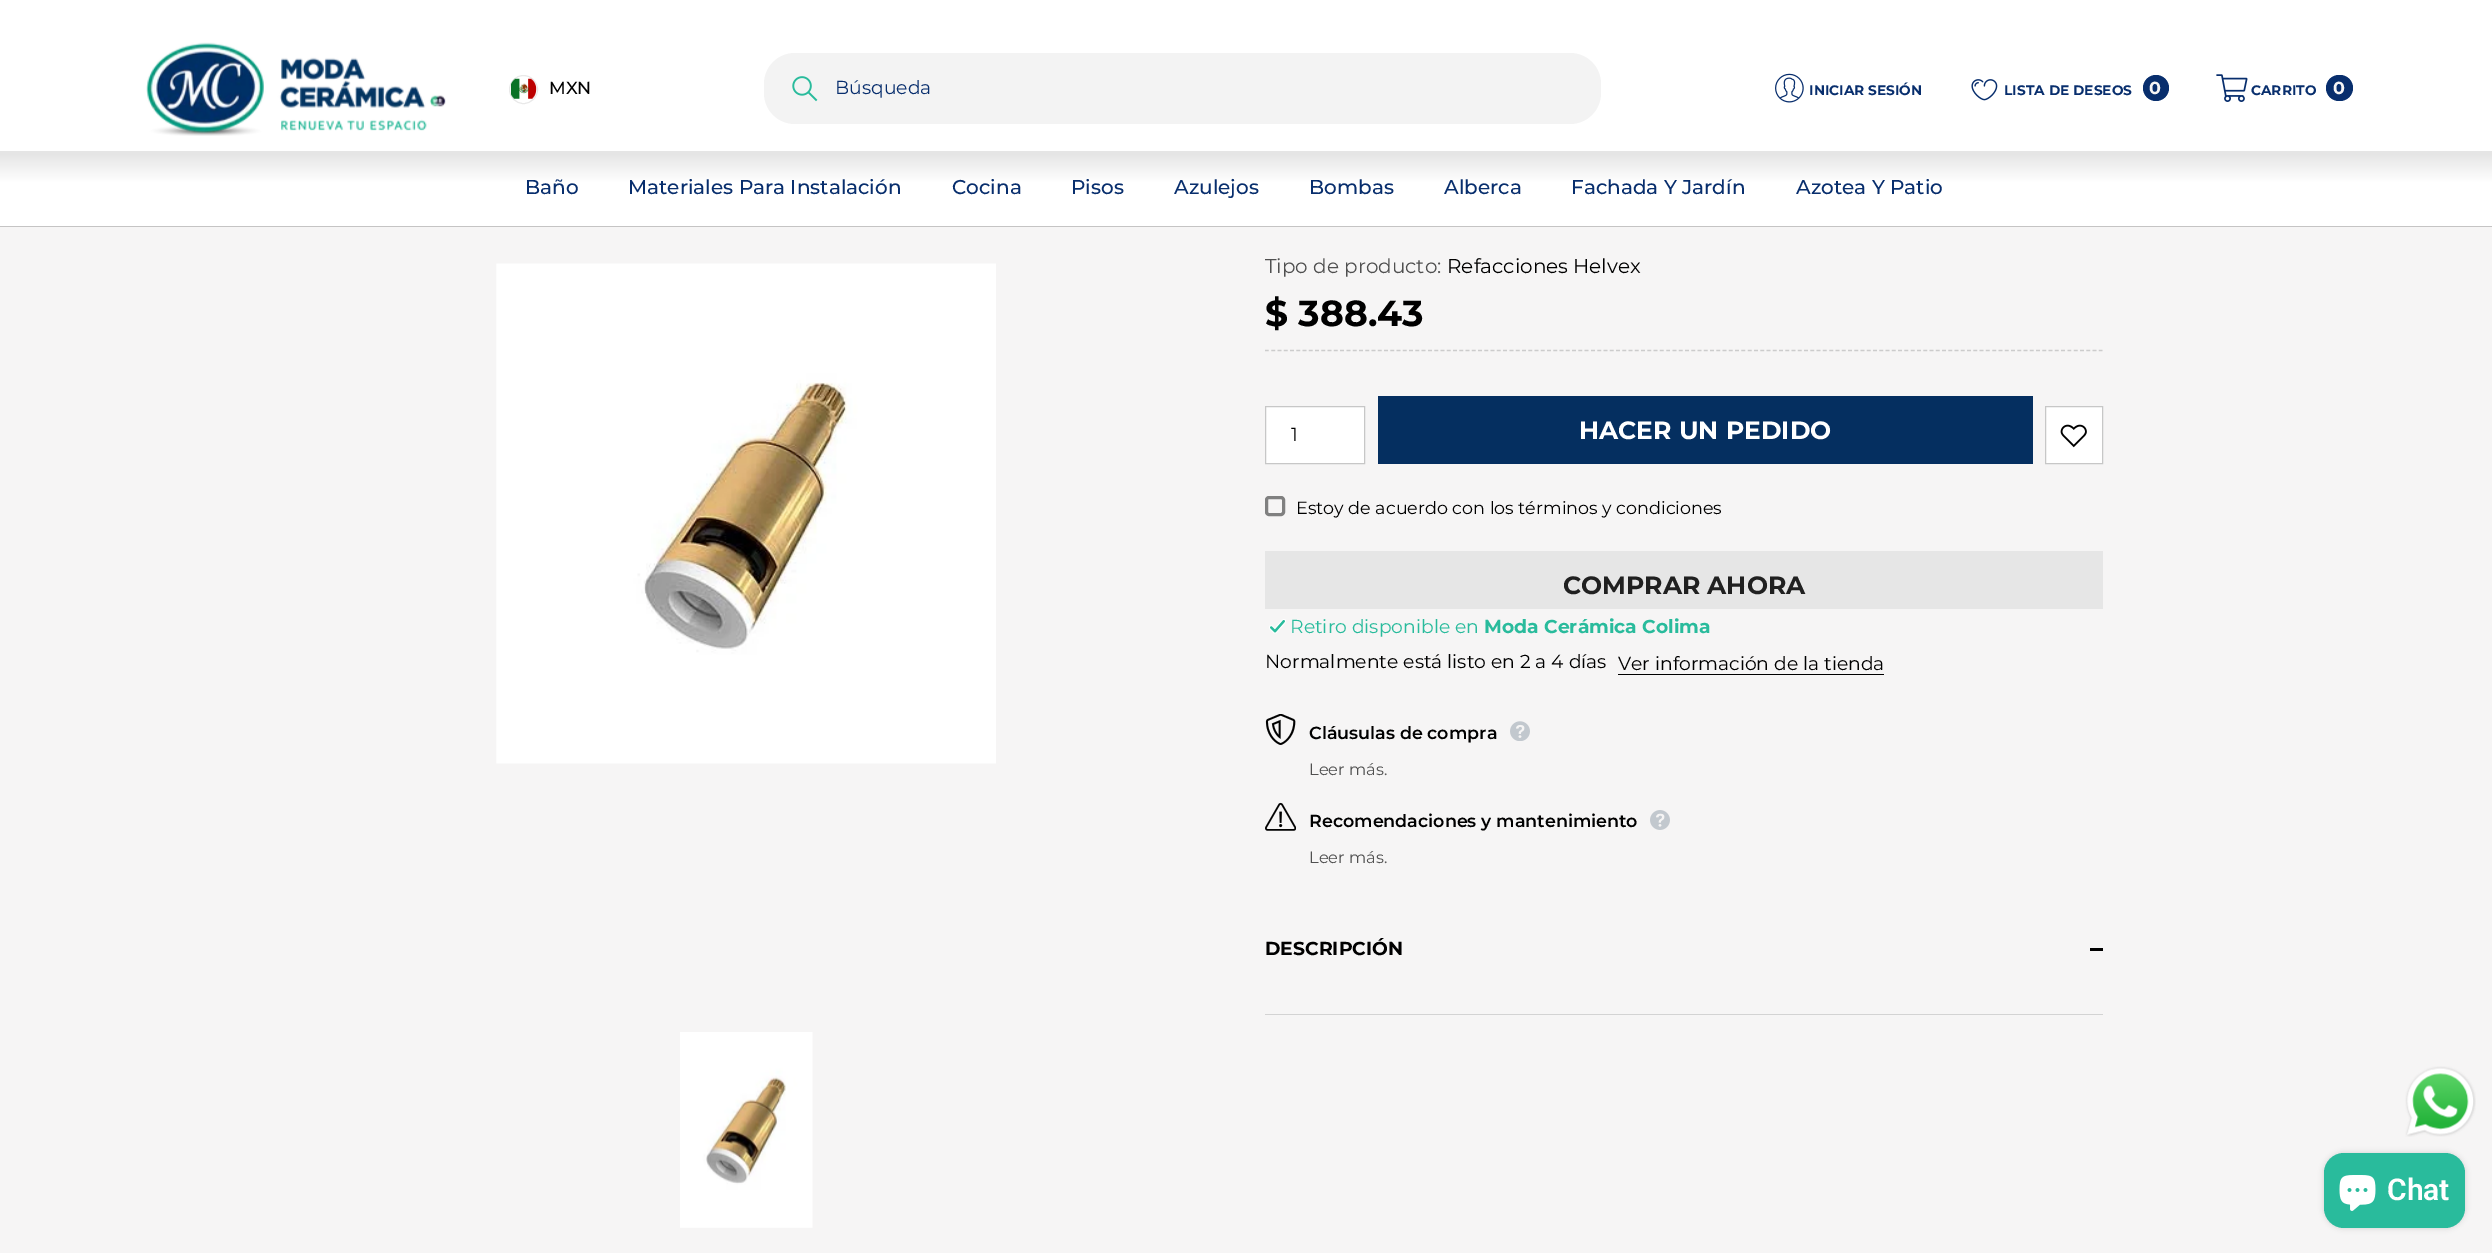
%!PS
<< /PageSize [2492 1253] /PageUsesTransparency true >> setpagedevice
/m/moveto load def
/l/rlineto load def
/z/closepath load def
/f/fill load def
/s/stroke load def
/q/gsave load def
/Q_/grestore load def
/w/setlinewidth load def
/C { dup -16 bitshift 255 div exch dup -8 bitshift 255 and 255 div exch 255 and 255 div setrgbcolor } def
/F { [ exch dup neg 0 0 3 -1 roll 0 0 ] selectfont } def
/T { moveto show } def
/R { rectfill } def
/A { dup .setfillconstantalpha .setstrokeconstantalpha } def
/O { newpath 0 360 arc closepath } def
/Q { 5 dict begin { /r /h /w /y /x } { exch def } forall
  x r add y moveto x w add y 2 copy h add r arct x w add y h add x 1 index r arct
  x y h add x y r arct x y 2 copy exch w add exch r arct closepath end } def
/S { 12 dict begin { /a /b /q /h /w /y /x } { exch def } forall gsave /was 0 def
  9 -2 -9 { dup b mul 4 div /e exch def 1 sub .425 mul 2.718 exch exp 1 add a .99 .min exch div /now exch def
    1 1 now sub 1 was sub div sub A /was now def
    w h .min e 2 mul add 0 gt { x e sub y e sub w e 2 mul add h e 2 mul add
      q e add b .6 mul add w h .min 2 div e add .min 0 .max Q fill } if } for grestore end } def
/I { 5 dict begin { /h /w /y /x /name } { exch def } forall
  gsave x y translate w h scale
  w h 8 [w 0 0 h 0 0] name (r) file false 3 colorimage grestore end } def
0 .pushpdf14devicefilter
0 1253 translate 1 -1 scale
4 setmiterlimit
16#F6F5F5 C
0 0 2492 1253 R
16#C5C4C4 C
0 226 2492 1 R
16#FFFFFF C
0 0 2492 151 R
(1.rgb) 146 42 300 94 I
16#E9E9E9 C
523.5 89.5 14 O s
(2.rgb) 511 78 26 21 I
/Montserrat-Medium 17.5 F
16#000000 C
(MXN) 549 94 T
16#F3F3F3 C
764 53 837 71 31 Q f
(3.rgb) 792 76 26 26 I
/Montserrat-Regular 18.75 F
16#082E6D C
(Búsqueda) 835 94 T
(4.rgb) 1775 73 29 30 I
/Montserrat-Bold 13.75 F
(INICIAR SESIÓN) 1809 95 T
(5.rgb) 1971 79 27 22 I
(LISTA DE DESEOS) 2004 95 T
2156 88 13 O f
/Montserrat-Bold 17.5 F
16#F6F5F5 C
(0) 2149 94 T
(6.rgb) 2216 74 32 28 I
/Montserrat-Bold 13.75 F
16#082E6D C
(CARRITO) 2251 95 T
2326 75 27 26 13 Q f
/Montserrat-Bold 17.5 F
16#F6F5F5 C
(0) 2333 94 T
q 0 151 m 2492 0 l 0 75 l -2492 0 l z clip newpath
<< /ShadingType 2 /ColorSpace /DeviceRGB /Coords [1246 151 1246 226] /Extend [true true] /Function << /FunctionType 3 /Domain [0 1] /Functions [<< /FunctionType 2 /Domain [0 1] /C0 [.898 .898 .898] /C1 [.898 .898 .898] /N 1 >> << /FunctionType 2 /Domain [0 1] /C0 [.898 .898 .898] /C1 [1 1 1] /N 1 >> << /FunctionType 2 /Domain [0 1] /C0 [1 1 1] /C1 [1 1 1] /N 1 >>] /Bounds [.03 .42] /Encode [0 1 0 1 0 1] >> >> shfill Q_
/Montserrat-Medium 20 F
16#082E6D C
(Baño) 525 194 T
(Materiales Para Instalación) 628 194 T
(Cocina) 952 194 T
(Pisos) 1071 194 T
(Azulejos) 1174 194 T
(Bombas) 1309 194 T
(Alberca) 1444 194 T
(Fachada Y Jardín) 1571 194 T
(Azotea Y Patio) 1796 194 T
(7.rgb) 496 263 500 501 I
(8.rgb) 680 1032 133 196 I
/Montserrat-Regular 20 F
16#505050 C
(Tipo de producto:) 1265 273 T
16#000000 C
(Refacciones Helvex) 1447 273 T
/Montserrat-Bold 36.25 F
($ 388.43) 1265 326 T
16#CCCCCC C
1.2 w
[3.75 2.52] 0 setdash
1265 350.5 m 837.5 0 l s
16#FFFFFF C
1265.5 406.5 m 99 0 l 0 57 l -99 0 l z q f Q_
16#C7C7C7 C
1 w
[] 0 setdash
s
/Montserrat-Regular 18.75 F
16#000000 C
(1) 1291 441 T
16#052F60 C
1378 396 655 68 R
/Montserrat-Bold 25 F
16#FFFFFF C
(HACER UN PEDIDO) 1579 439 T
2045.5 406.5 m 57 0 l 0 57 l -57 0 l z q f Q_
16#C7C7C7 C
s
(9.rgb) 2060 424 27 24 I
16#808080 C
3 w
1266.5 497.5 17 17 2.5 Q s
/Montserrat-Regular 17.5 F
16#000000 C
(Estoy de acuerdo con los términos y condiciones) 1296 514 T
16#E6E6E6 C
1265 551 838 58 R
/Montserrat-Bold 25 F
16#202020 C
(COMPRAR AHORA) 1563 594 T
(10.rgb) 1269 619 17 15 I
/Montserrat-Regular 18.75 F
16#29BB9C C
(Retiro disponible en) 1290 633 T
/Montserrat-Bold 18.75 F
(Moda Cerámica Colima) 1484 633 T
/Montserrat-Regular 18.75 F
16#000000 C
(Normalmente está listo en 2 a 4 días) 1265 668 T
(Ver información de la tienda) 1618 670 T
1618 674 266 1 R
(11.rgb) 1265 714 31 31 I
/Montserrat-SemiBold 17.5 F
(Cláusulas de compra) 1309 739 T
(12.rgb) 1510 721 20 20 I
/Montserrat-Regular 16.25 F
16#505050 C
(Leer más.) 1309 775 T
(13.rgb) 1265 802 31 29 I
/Montserrat-SemiBold 17.5 F
16#000000 C
(Recomendaciones y mantenimiento) 1309 827 T
(14.rgb) 1650 810 20 20 I
/Montserrat-Regular 16.25 F
16#505050 C
(Leer más.) 1309 863 T
16#D3D3D3 C
1265 1014 838 1 R
/Montserrat-Bold 18.75 F
16#000000 C
(DESCRIPCIÓN) 1265 955 T
2090 948 13 3 R
(15.rgb) 2405 1066 71 71 I
2324 1153 141 75 20 3 .15 S
16#29BB9C C
2324 1153 141 75 20 Q f
(16.rgb) 2339 1175 37 36 I
/Roboto-SemiBold 30 F
16#FFFFFF C
(Chat) 2387 1200 T
.poppdf14devicefilter showpage
